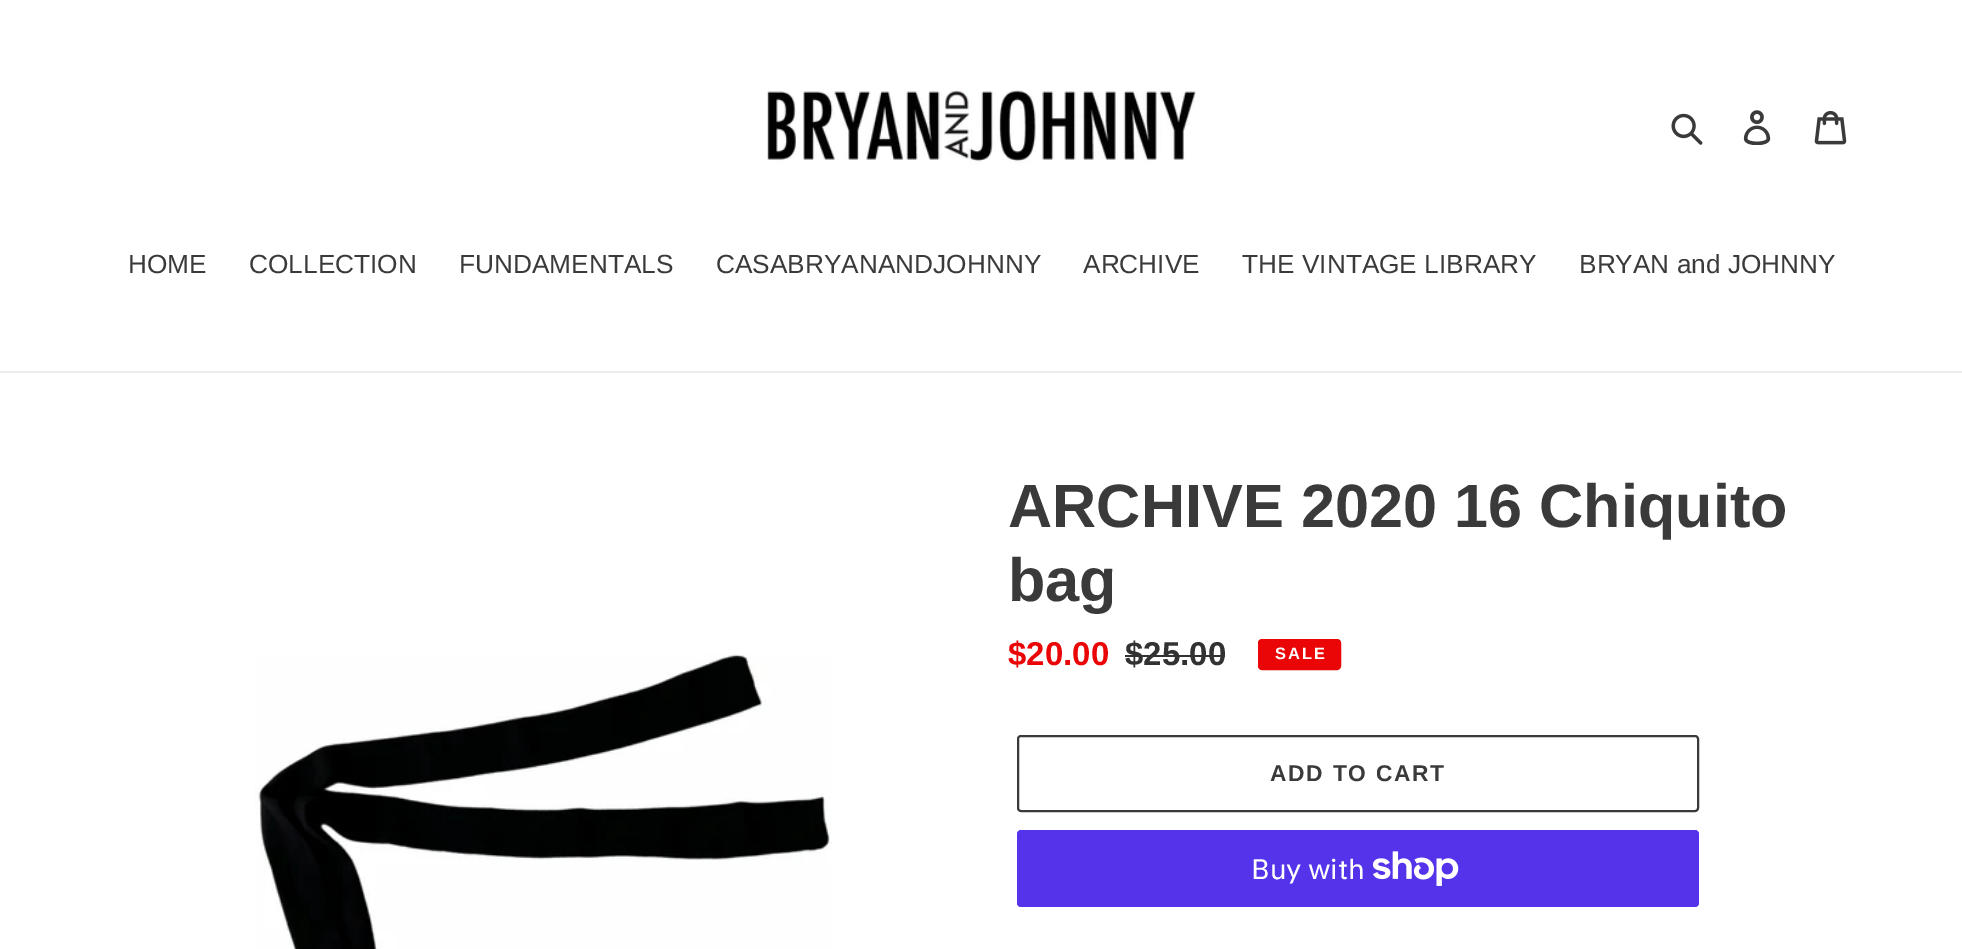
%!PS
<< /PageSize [1962 949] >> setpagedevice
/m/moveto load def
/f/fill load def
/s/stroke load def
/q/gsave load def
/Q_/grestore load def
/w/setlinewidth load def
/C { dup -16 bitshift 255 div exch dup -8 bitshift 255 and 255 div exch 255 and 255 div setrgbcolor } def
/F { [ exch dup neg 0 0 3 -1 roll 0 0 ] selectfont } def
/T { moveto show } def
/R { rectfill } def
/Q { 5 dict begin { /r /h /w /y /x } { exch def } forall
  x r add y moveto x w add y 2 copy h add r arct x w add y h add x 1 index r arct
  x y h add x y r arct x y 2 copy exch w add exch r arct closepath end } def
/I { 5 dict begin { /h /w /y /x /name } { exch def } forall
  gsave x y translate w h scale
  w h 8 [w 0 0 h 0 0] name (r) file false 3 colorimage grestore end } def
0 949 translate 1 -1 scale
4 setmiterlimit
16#FFFFFF C
0 0 1962 949 R
(1.rgb) 767 90 429 75 I
(2.rgb) 1671 113 32 32 I
(3.rgb) 1743 110 28 35 I
(4.rgb) 1814 110 33 35 I
16#EBEBEB C
0 371 1962 2 R
/LiberationSans-Regular 26.25 F
16#3A3A3A C
(HOME) 128 273 T
(COLLECTION) 249 273 T
(FUNDAMENTALS) 459 273 T
(CASABRYANANDJOHNNY) 716 273 T
(ARCHIVE) 1083 273 T
(THE VINTAGE LIBRARY) 1242 273 T
(BRYAN and JOHNNY) 1579 273 T
(5.rgb) 255 654 577 295 I
/LiberationSans-Bold 61.25 F
(ARCHIVE 2020 16 Chiquito) 1008 527 T
(bag) 1008 601 T
/LiberationSans-Bold 33 F
16#EA0606 C
($20.00) 1008 665 T
16#333232 C
($25.00) 1125 665 T
1125 655 100 2 R
16#EA0606 C
1259 640 81 29 3 Q q f Q_
2 w
s
/LiberationSans-Bold 16.5 F
16#FFFFFF C
1275 659 m 2 0 (SALE) ashow
16#3A3A3A C
1018 736 680 75 3 Q s
/LiberationSans-Bold 22.75 F
1270 781 m 1.75 0 (ADD TO CART) ashow
16#5433EB C
1017 830 682 77 4 Q f
/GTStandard-Regular 28 F
16#FFFFFF C
(Buy with) 1251 879 T
(6.rgb) 1373 851 86 35 I
showpage
